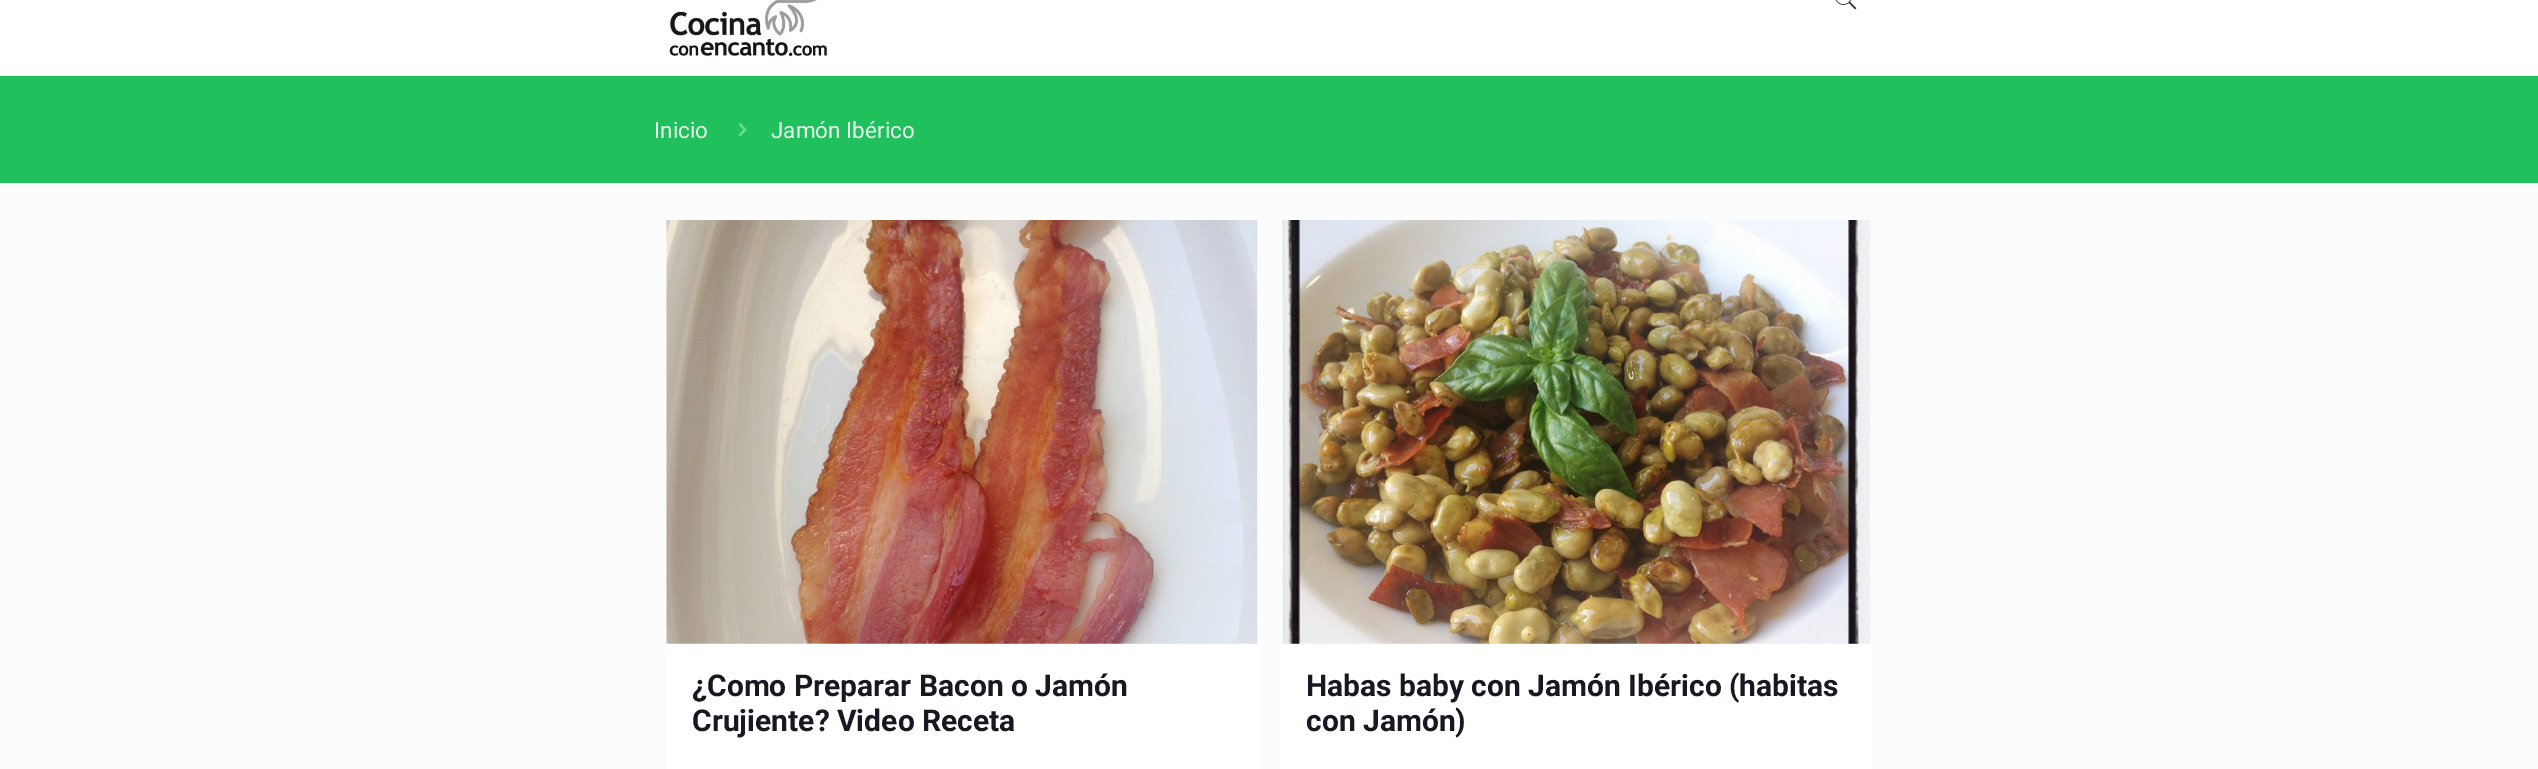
%!PS
<< /PageSize [2538 769] >> setpagedevice
/C { dup -16 bitshift 255 div exch dup -8 bitshift 255 and 255 div exch 255 and 255 div setrgbcolor } def
/F { [ exch dup neg 0 0 3 -1 roll 0 0 ] selectfont } def
/T { moveto show } def
/R { rectfill } def
/I { 5 dict begin { /h /w /y /x /name } { exch def } forall
  gsave x y translate w h scale
  w h 8 [w 0 0 h 0 0] name (r) file false 3 colorimage grestore end } def
0 769 translate 1 -1 scale
4 setmiterlimit
16#FCFCFC C
0 0 2538 769 R
16#FFFFFF C
0 0 2538 75 R
16#F2F2F2 C
0 75 2538 1 R
(1.rgb) 668 0 162 57 I
(2.rgb) 1835 0 22 10 I
16#20C05C C
0 76 2538 107 R
/Roboto-Regular 22.5 F
16#E9F9EF C
(Inicio) 654 138 T
(3.rgb) 738 123 9 13 I
(Jamón Ibérico) 771 138 T
16#FFFFFF C
666 220 592 549 R
(4.rgb) 666 220 592 424 I
/Roboto-Bold 30 F
16#161922 C
(¿Como Preparar Bacon o Jamón) 692 696 T
(Crujiente? Video Receta) 692 731 T
16#FFFFFF C
1281 220 590 549 R
(5.rgb) 1281 220 590 424 I
16#161922 C
(Habas baby con Jamón Ibérico \(habitas) 1306 696 T
(con Jamón\)) 1306 731 T
showpage
